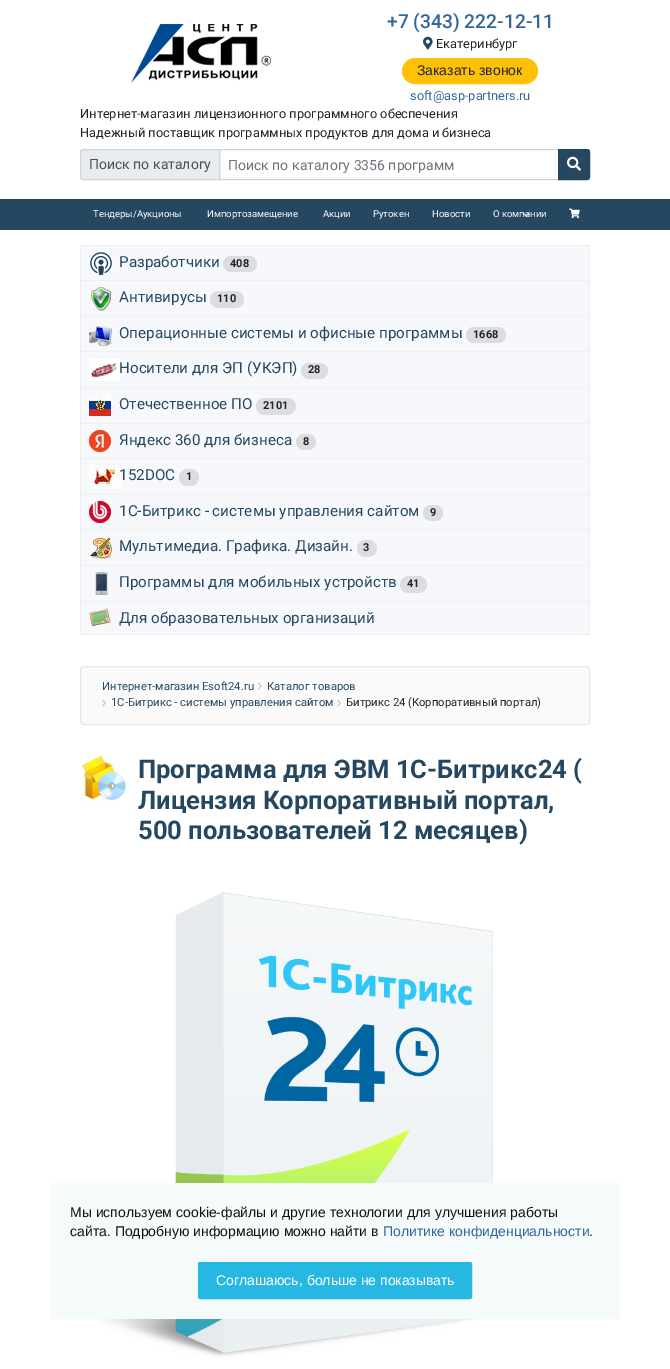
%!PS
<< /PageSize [670 1369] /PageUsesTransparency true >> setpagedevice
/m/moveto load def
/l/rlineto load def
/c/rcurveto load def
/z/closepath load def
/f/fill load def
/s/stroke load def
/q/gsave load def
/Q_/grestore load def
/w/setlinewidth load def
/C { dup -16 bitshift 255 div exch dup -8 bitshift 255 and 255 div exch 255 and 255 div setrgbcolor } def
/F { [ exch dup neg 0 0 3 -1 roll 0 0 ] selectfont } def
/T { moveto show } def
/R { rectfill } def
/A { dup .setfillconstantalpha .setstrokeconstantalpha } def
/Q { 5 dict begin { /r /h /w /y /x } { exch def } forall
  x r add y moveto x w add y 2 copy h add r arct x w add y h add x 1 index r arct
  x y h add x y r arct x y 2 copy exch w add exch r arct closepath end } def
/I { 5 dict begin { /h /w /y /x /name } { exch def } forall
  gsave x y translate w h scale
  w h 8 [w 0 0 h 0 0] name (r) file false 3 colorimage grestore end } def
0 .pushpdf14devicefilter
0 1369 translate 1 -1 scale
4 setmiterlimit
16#FFFFFF C
0 0 670 1369 R
(1.rgb) 131 24 140 59 I
/Roboto-Medium 19.25 F
16#336699 C
(+7 \(343\) 222-12-11) 387 28 T
(2.rgb) 423 36 10 14 I
/Roboto-Regular 12.8 F
16#212529 C
(Екатеринбург) 436 48 T
16#FFC107 C
402.5 58.5 135 25 12.5 Q q f Q_
s
/LiberationSans-Regular 14 F
16#212529 C
(Заказать звонок) 417 75 T
/Roboto-Regular 12.8 F
16#336699 C
(soft@asp-partners.ru) 410 100 T
16#212529 C
(Интернет-магазин лицензионного программного обеспечения) 80 118 T
(Надежный поставщик программных продуктов для дома и бизнеса) 80 137 T
16#E9ECEF C
83 149.5 m 136.5 0 l 0 30 l -136.5 0 l -1.5 0 -2.5 -1 -2.5 -2.5 c 0 -25 l 0 -1.5 1 -2.5 2.5 -2.5 c z q f Q_
16#CED4DA C
s
/Roboto-Regular 14 F
16#495057 C
(Поиск по каталогу) 89 169 T
16#CED4DA C
219.5 149.5 339 30 rectstroke
16#6C757D C
(Поиск по каталогу 3356 программ) 228 170 T
16#254760 C
558.5 149.5 m 28.5 0 l 1.5 0 2.5 1 2.5 2.5 c 0 25 l 0 1.5 -1 2.5 -2.5 2.5 c -28.5 0 l z q f Q_
s
(3.rgb) 567 156 14 15 I
0 199 670 31 R
/Roboto-Regular 9.5 F
16#FFFFFF C
(Тендеры/Аукционы) 93 217 T
(Импортозамещение) 207 217 T
(Акции) 323 217 T
(Рутокен) 373 217 T
(Новости) 432 217 T
(О компании) 493 217 T
q
518 213 16 9 rectclip
0.7 A
1.3 w
1 setlinecap
1 setlinejoin
522 212 m 4 4 l 4 -4 l s
Q_
(4.rgb) 569 208 11 11 I
16#EFEFEF C
80 245 510 1 R
589 245 1 390 R
80 245 1 390 R
16#F7F8FC C
81 246 508 34 R
(5.rgb) 89 251 24 24 I
16#EFEFEF C
81 280 508 1 R
/Roboto-Regular 15.2 F
16#254760 C
(Разработчики) 119 267 T
16#DBDDE1 C
223 256 34 16 8 Q f
/Roboto-Bold 11 F
16#212529 C
(408) 230 267 T
16#F7F8FC C
81 281 508 35 R
(6.rgb) 91 287 20 24 I
16#EFEFEF C
81 316 508 1 R
/Roboto-Regular 15.2 F
16#254760 C
(Антивирусы) 119 302 T
16#DBDDE1 C
210 291 34 17 8.5 Q f
/Roboto-Bold 11 F
16#212529 C
(110) 217 302 T
16#F7F8FC C
81 317 508 34 R
(7.rgb) 89 326 24 20 I
16#EFEFEF C
81 351 508 1 R
/Roboto-Regular 15.2 F
16#254760 C
(Операционные системы и офисные программы) 119 338 T
16#DBDDE1 C
466 327 40 16 8 Q f
/Roboto-Bold 11 F
16#212529 C
(1668) 473 338 T
16#F7F8FC C
81 352 508 35 R
(8.rgb) 89 359 31 22 I
16#EFEFEF C
81 387 508 1 R
/Roboto-Regular 15.2 F
16#254760 C
(Носители для ЭП \(УКЭП\)) 119 373 T
16#DBDDE1 C
301 363 27 16 8 Q f
/Roboto-Bold 11 F
16#212529 C
(28) 308 373 T
16#F7F8FC C
81 388 508 35 R
(9.rgb) 89 394 22 22 I
16#EFEFEF C
81 423 508 1 R
/Roboto-Regular 15.2 F
16#254760 C
(Отечественное ПО) 119 409 T
16#DBDDE1 C
256 398 40 17 8.5 Q f
/Roboto-Bold 11 F
16#212529 C
(2101) 263 409 T
16#F7F8FC C
81 424 508 34 R
(10.rgb) 89 430 22 22 I
16#EFEFEF C
81 458 508 1 R
/Roboto-Regular 15.2 F
16#254760 C
(Яндекс 360 для бизнеса) 119 445 T
16#DBDDE1 C
296 434 20 16 8 Q f
/Roboto-Bold 11 F
16#212529 C
(8) 303 445 T
16#F7F8FC C
81 459 508 35 R
(11.rgb) 89 465 32 24 I
16#EFEFEF C
81 494 508 1 R
/Roboto-Regular 15.2 F
16#254760 C
(152DOC) 119 480 T
16#DBDDE1 C
179 469 20 17 8.5 Q f
/Roboto-Bold 11 F
16#212529 C
(1) 186 480 T
16#F7F8FC C
81 495 508 34 R
(12.rgb) 89 501 22 22 I
16#EFEFEF C
81 529 508 1 R
/Roboto-Regular 15.2 F
16#254760 C
(1С-Битрикс - системы управления сайтом) 119 516 T
16#DBDDE1 C
423 505 20 16 8 Q f
/Roboto-Bold 11 F
16#212529 C
(9) 430 516 T
16#F7F8FC C
81 530 508 35 R
(13.rgb) 90 538 22 21 I
16#EFEFEF C
81 565 508 1 R
/Roboto-Regular 15.2 F
16#254760 C
(Мультимедиа. Графика. Дизайн.) 119 551 T
16#DBDDE1 C
357 540 20 17 8.5 Q f
/Roboto-Bold 11 F
16#212529 C
(3) 363 551 T
16#F7F8FC C
81 566 508 35 R
(14.rgb) 95 572 13 23 I
16#EFEFEF C
81 601 508 1 R
/Roboto-Regular 15.2 F
16#254760 C
(Программы для мобильных устройств) 119 587 T
16#DBDDE1 C
400 576 27 17 8.5 Q f
/Roboto-Bold 11 F
16#212529 C
(41) 407 587 T
16#F7F8FC C
81 602 508 32 R
(15.rgb) 89 608 22 19 I
16#EFEFEF C
81 634 508 1 R
/Roboto-Regular 15.2 F
16#254760 C
(Для образовательных организаций) 119 623 T
16#FAFAFA C
80.5 666.5 509 58 3.5 Q q f Q_
16#E4E8EB C
s
/Roboto-Regular 11.25 F
16#254760 C
(Интернет-магазин Esoft24.ru) 102 690 T
(16.rgb) 258 682 4 8 I
(Каталог товаров) 267 690 T
(16.rgb) 102 699 4 8 I
(1С-Битрикс - системы управления сайтом) 111 706 T
(16.rgb) 337 699 4 8 I
16#212529 C
(Битрикс 24 \(Корпоративный портал\)) 346 706 T
(17.rgb) 80 754 48 48 I
/Roboto-Bold 25.6 F
16#254760 C
(Программа для ЭВМ 1С-Битрикс24 \() 138 778 T
(Лицензия Корпоративный портал,) 138 809 T
(500 пользователей 12 месяцев\)) 138 839 T
(18.rgb) 99 892 394 465 I
16#F5FAFA C
50 1183 570 136 R
/LiberationSans-Regular 14 F
16#111111 C
(Мы используем cookie-файлы и другие технологии для улучшения работы) 70 1217 T
(сайта. Подробную информацию можно найти в) 70 1236 T
16#336699 C
(Политике конфиденциальности) 383 1236 T
16#111111 C
(.) 589 1236 T
16#26B8E2 C
199 1263 272 35 1 Q q f Q_
2 w
s
16#FFFFFF C
(Соглашаюсь, больше не показывать) 216 1285 T
.poppdf14devicefilter showpage
